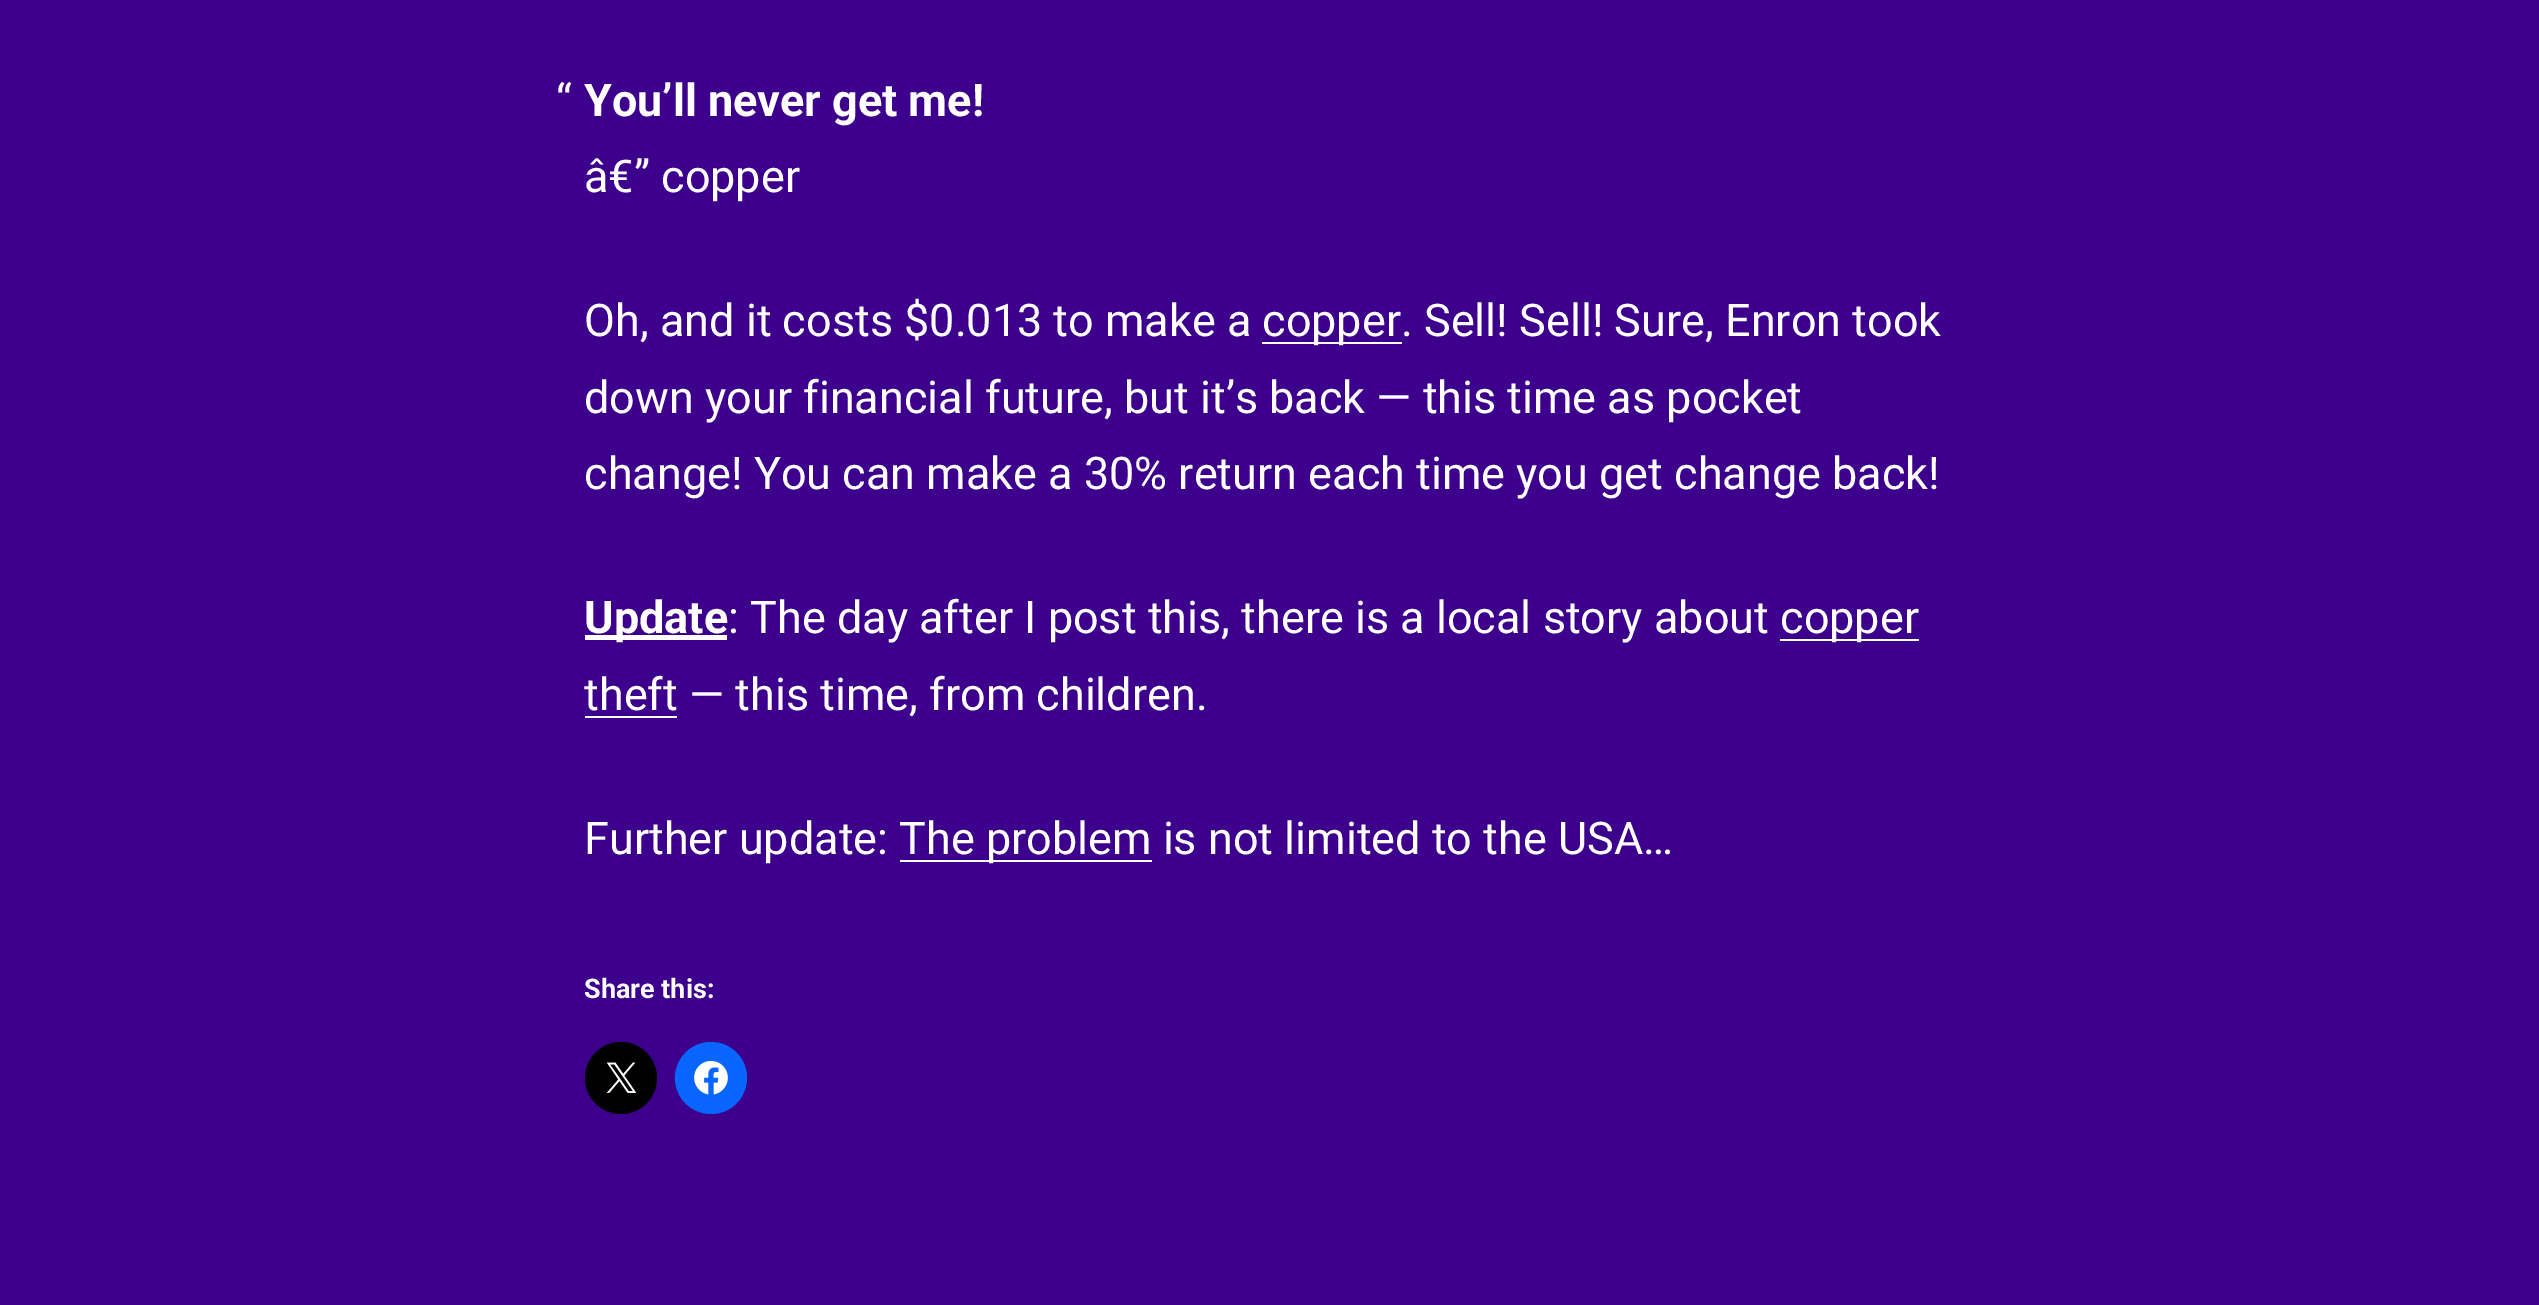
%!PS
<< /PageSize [2539 1305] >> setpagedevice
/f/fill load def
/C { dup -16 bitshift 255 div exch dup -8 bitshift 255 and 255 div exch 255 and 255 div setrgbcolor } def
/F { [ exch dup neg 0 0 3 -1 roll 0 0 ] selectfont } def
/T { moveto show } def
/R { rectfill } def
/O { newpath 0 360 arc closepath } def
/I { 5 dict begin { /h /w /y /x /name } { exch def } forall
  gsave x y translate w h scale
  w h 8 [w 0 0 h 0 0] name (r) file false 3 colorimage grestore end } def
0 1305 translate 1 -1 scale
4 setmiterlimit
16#3C008C C
0 0 2539 1305 R
/Roboto-Regular 45 F
16#FFFFFF C
(“) 556 116 T
/Roboto-Bold 45 F
(You’ll never get me!) 584 116 T
/Roboto-Regular 45 F
(â€” copper) 584 192 T
(Oh, and it costs $0.013 to make a) 584 336 T
1262 342 140 2 R
(copper. Sell! Sell! Sure, Enron took) 1262 336 T
(down your financial future, but it’s back — this time as pocket) 584 413 T
(change! You can make a 30% return each time you get change back!) 584 489 T
585 635 142 5 R
/Roboto-Bold 45 F
(Update) 584 633 T
/Roboto-Regular 45 F
(: The day after I post this, there is a local story about) 728 633 T
1780 639 139 2 R
(copper) 1780 633 T
585 716 92 2 R
(theft — this time, from children.) 584 710 T
(Further update:) 584 854 T
900 860 252 2 R
(The problem is not limited to the USA…) 899 854 T
/Roboto-Bold 27 F
(Share this:) 584 998 T
16#000000 C
621 1078 36 O f
(1.rgb) 606 1062 31 31 I
16#0866FF C
711 1078 36 O f
(2.rgb) 694 1060 34 35 I
showpage
